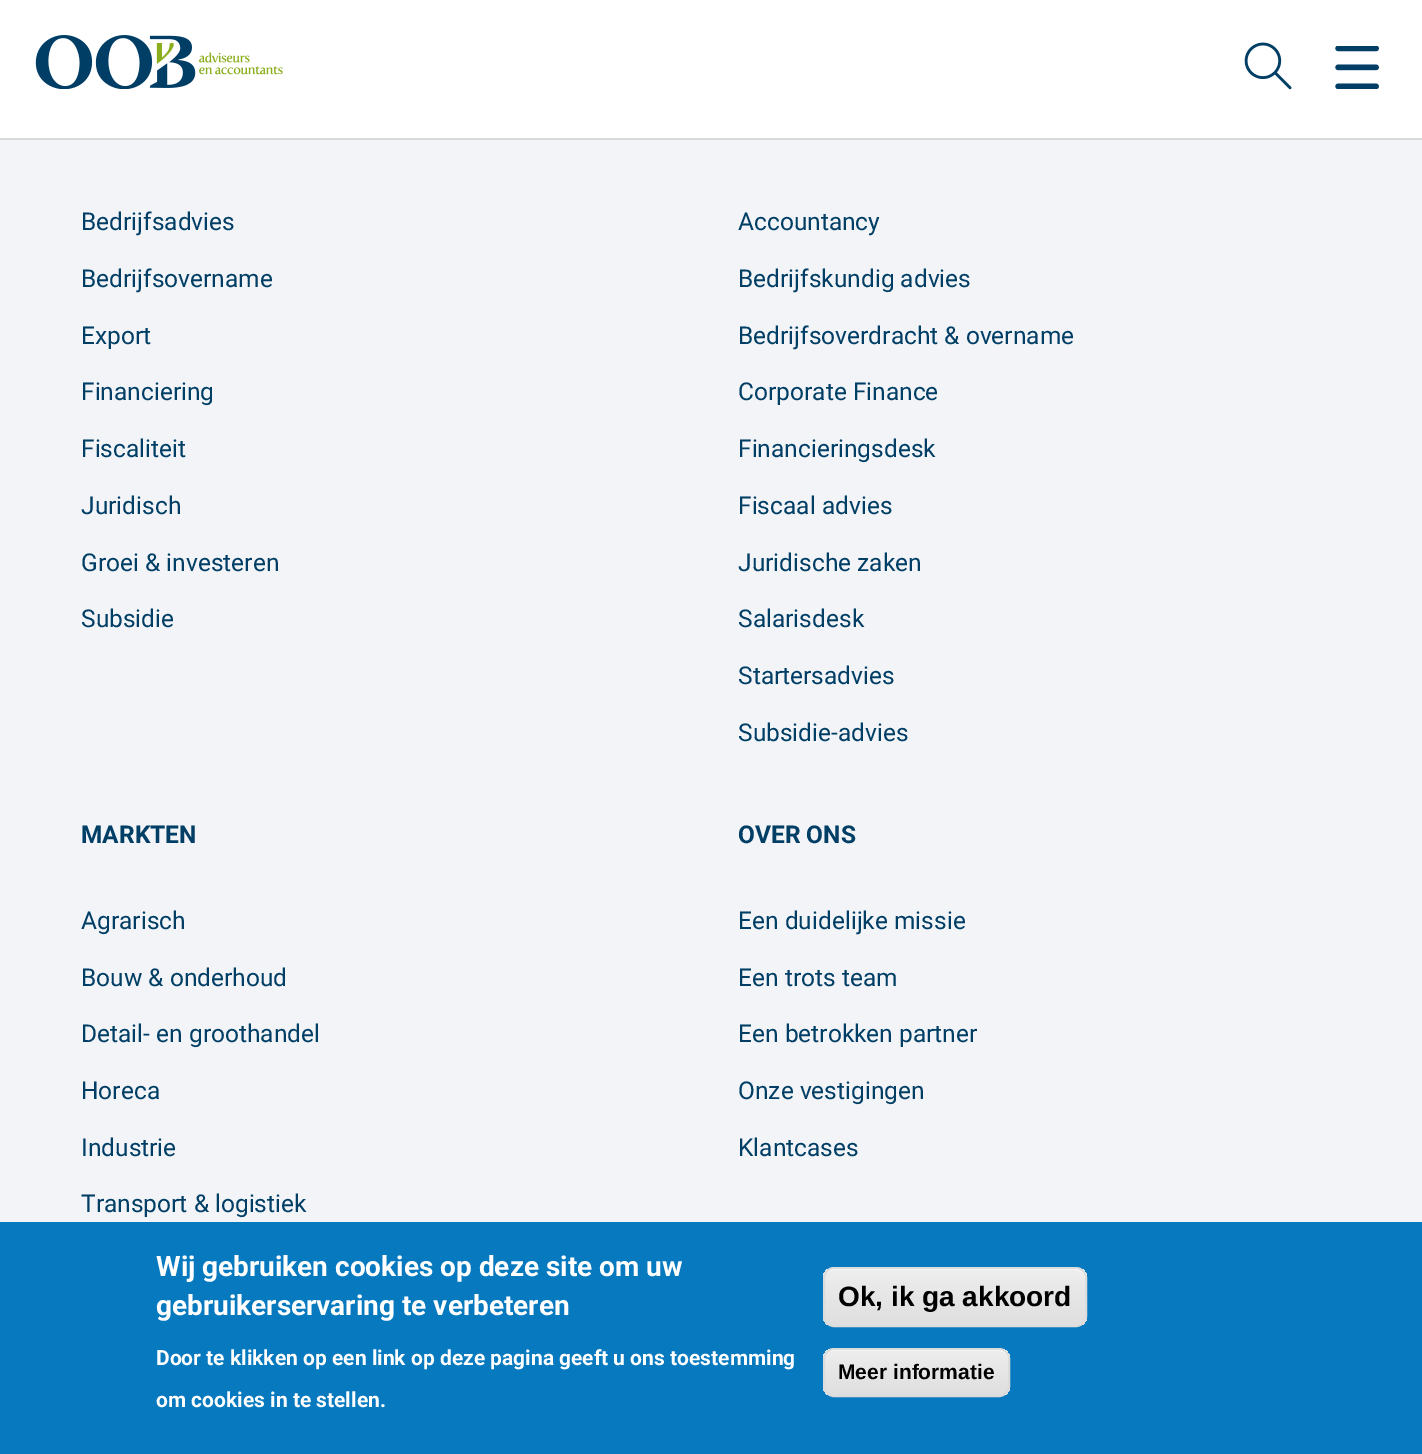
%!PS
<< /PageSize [1422 1454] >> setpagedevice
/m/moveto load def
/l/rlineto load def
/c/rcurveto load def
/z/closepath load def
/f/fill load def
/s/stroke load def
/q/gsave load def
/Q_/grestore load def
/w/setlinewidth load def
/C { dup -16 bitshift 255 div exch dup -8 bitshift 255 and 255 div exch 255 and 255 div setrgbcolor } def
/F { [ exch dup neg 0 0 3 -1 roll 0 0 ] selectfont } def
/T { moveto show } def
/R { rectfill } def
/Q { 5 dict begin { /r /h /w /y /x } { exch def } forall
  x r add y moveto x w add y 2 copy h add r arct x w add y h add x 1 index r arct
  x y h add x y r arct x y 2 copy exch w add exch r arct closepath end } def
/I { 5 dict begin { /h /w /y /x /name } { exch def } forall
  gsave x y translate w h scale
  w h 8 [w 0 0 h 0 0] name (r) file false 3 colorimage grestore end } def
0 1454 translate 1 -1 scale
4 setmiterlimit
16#F3F4F8 C
0 0 1422 1454 R
16#FFFFFF C
0 0 1422 138 R
16#D9D9D9 C
0 138 1422 2 R
(1.rgb) 35 35 248 54 I
(2.rgb) 1244 42 48 48 I
(3.rgb) 1335 46 44 43 I
/Roboto-Regular 24.5 F
16#003E65 C
(Bedrijfsadvies) 81 230 T
(Bedrijfsovername) 81 287 T
(Export) 81 344 T
(Financiering) 81 400 T
(Fiscaliteit) 81 457 T
(Juridisch) 81 514 T
(Groei & investeren) 81 571 T
(Subsidie) 81 627 T
(Accountancy) 738 230 T
(Bedrijfskundig advies) 738 287 T
(Bedrijfsoverdracht & overname) 738 344 T
(Corporate Finance) 738 400 T
(Financieringsdesk) 738 457 T
(Fiscaal advies) 738 514 T
(Juridische zaken) 738 571 T
(Salarisdesk) 738 627 T
(Startersadvies) 738 684 T
(Subsidie-advies) 738 741 T
/Roboto-Bold 24.5 F
(MARKTEN) 81 843 T
/Roboto-Regular 24.5 F
(Agrarisch) 81 929 T
(Bouw & onderhoud) 81 986 T
(Detail- en groothandel) 81 1042 T
(Horeca) 81 1099 T
(Industrie) 81 1156 T
(Transport & logistiek) 81 1212 T
/Roboto-Bold 24.5 F
(OVER ONS) 738 843 T
/Roboto-Regular 24.5 F
(Een duidelijke missie) 738 929 T
(Een trots team) 738 986 T
(Een betrokken partner) 738 1042 T
(Onze vestigingen) 738 1099 T
(Klantcases) 738 1156 T
16#0779BF C
0 1222 1422 232 R
/Roboto-Bold 28 F
16#FFFFFF C
(Wij gebruiken cookies op deze site om uw) 156 1276 T
(gebruikerservaring te verbeteren) 156 1315 T
/Roboto-Bold 21 F
(Door te klikken op een link op deze pagina geeft u ons toestemming) 156 1365 T
(om cookies in te stellen.) 156 1407 T
q
823 1267 264 60 11 Q clip newpath
q 823 1269 m 264 0 l 0 56 l -264 0 l z clip newpath
<< /ShadingType 2 /ColorSpace /DeviceRGB /Coords [955 1269 955 1325] /Extend [true true] /Function << /FunctionType 3 /Domain [0 1] /Functions [<< /FunctionType 2 /Domain [0 1] /C0 [.929 .929 .929] /C1 [.929 .929 .929] /N 1 >> << /FunctionType 2 /Domain [0 1] /C0 [.929 .929 .929] /C1 [.875 .875 .875] /N 1 >>] /Bounds [.05] /Encode [0 1 0 1] >> >> shfill Q_
Q_
833 1270 m 243 0 l 5 0 9 4 9 9 c 0 -1 l 0 -5 -4 -9 -9 -9 c -243 0 l -5 0 -9 4 -9 9 c 0 1 l 0 -5 4 -9 9 -9 c z f
16#DCDCDC C
2 w
824 1268 262 58 10 Q s
/LiberationSans-Bold 28 F
16#000000 C
(Ok, ik ga akkoord) 838 1306 T
q
823 1348 187 49 11 Q clip newpath
q 823 1349 m 187 0 l 0 46 l -187 0 l z clip newpath
<< /ShadingType 2 /ColorSpace /DeviceRGB /Coords [916 1349 916 1395] /Extend [true true] /Function << /FunctionType 3 /Domain [0 1] /Functions [<< /FunctionType 2 /Domain [0 1] /C0 [.929 .929 .929] /C1 [.929 .929 .929] /N 1 >> << /FunctionType 2 /Domain [0 1] /C0 [.929 .929 .929] /C1 [.875 .875 .875] /N 1 >>] /Bounds [.05] /Encode [0 1 0 1] >> >> shfill Q_
Q_
16#FFFFFF C
833 1351 m 166 0 l 5 0 9 4 9 9 c 0 -2 l 0 -5 -4 -9 -9 -9 c -166 0 l -5 0 -9 4 -9 9 c 0 2 l 0 -5 4 -9 9 -9 c z f
16#DCDCDC C
824 1349 185 47 10 Q s
/LiberationSans-Bold 21 F
16#000000 C
(Meer informatie) 838 1379 T
showpage
